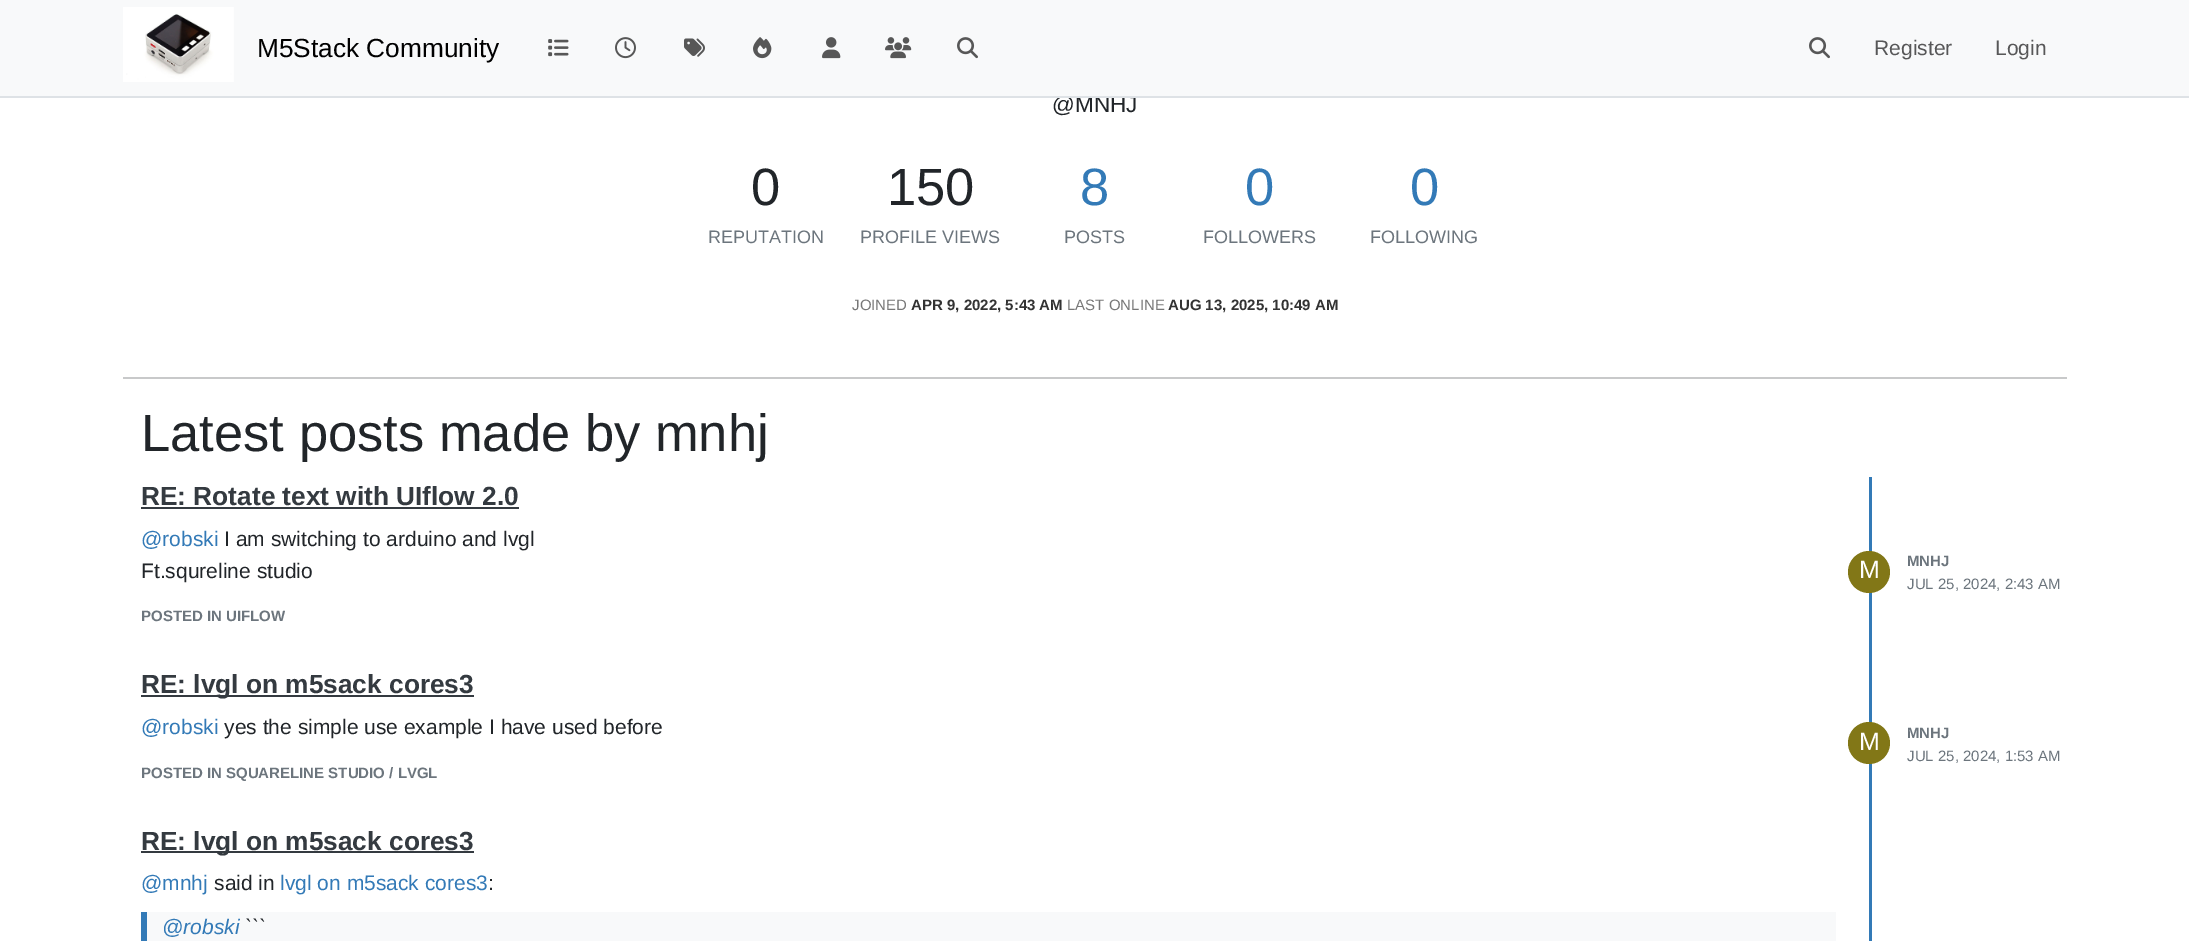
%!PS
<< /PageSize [2189 941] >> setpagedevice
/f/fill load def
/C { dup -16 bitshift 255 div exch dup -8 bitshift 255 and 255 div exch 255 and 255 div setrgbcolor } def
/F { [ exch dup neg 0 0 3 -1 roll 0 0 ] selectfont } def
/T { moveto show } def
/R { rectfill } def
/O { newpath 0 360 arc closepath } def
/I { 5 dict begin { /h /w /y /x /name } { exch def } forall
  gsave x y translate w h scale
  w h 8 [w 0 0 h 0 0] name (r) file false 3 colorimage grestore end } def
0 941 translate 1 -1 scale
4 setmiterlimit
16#FFFFFF C
0 0 2189 941 R
/LiberationSans-Regular 22.5 F
16#212529 C
(@MNHJ) 1052 112 T
16#F8F9FA C
0 0 2189 96 R
16#DEE2E6 C
0 96 2189 2 R
(1.rgb) 123 7 111 75 I
/LiberationSans-Regular 26.25 F
16#000000 C
(M5Stack Community) 257 57 T
(2.rgb) 548 39 21 18 I
(3.rgb) 615 37 21 22 I
(4.rgb) 684 38 21 19 I
(5.rgb) 753 37 19 22 I
(6.rgb) 822 37 19 22 I
(7.rgb) 885 37 27 22 I
(8.rgb) 957 37 21 22 I
(8.rgb) 1809 37 21 22 I
/LiberationSans-Regular 21 F
16#575758 C
(Register) 1874 55 T
(Login) 1995 55 T
/LiberationSans-Regular 52.5 F
16#212529 C
(0) 751 205 T
/LiberationSans-Regular 18 F
16#6C757D C
(REPUTATION) 708 243 T
/LiberationSans-Regular 52.5 F
16#212529 C
(150) 887 205 T
/LiberationSans-Regular 18 F
16#6C757D C
(PROFILE VIEWS) 860 243 T
/LiberationSans-Regular 52.5 F
16#337AB7 C
(8) 1080 205 T
/LiberationSans-Regular 18 F
16#6C757D C
(POSTS) 1064 243 T
/LiberationSans-Regular 52.5 F
16#337AB7 C
(0) 1245 205 T
/LiberationSans-Regular 18 F
16#6C757D C
(FOLLOWERS) 1203 243 T
/LiberationSans-Regular 52.5 F
16#337AB7 C
(0) 1410 205 T
/LiberationSans-Regular 18 F
16#6C757D C
(FOLLOWING) 1370 243 T
/LiberationSans-Regular 15 F
16#777777 C
(JOINED) 852 310 T
/LiberationSans-Bold 15 F
16#333333 C
(APR 9, 2022, 5:43 AM) 911 310 T
/LiberationSans-Regular 15 F
16#777777 C
(LAST ONLINE) 1067 310 T
/LiberationSans-Bold 15 F
16#333333 C
(AUG 13, 2025, 10:49 AM) 1168 310 T
16#C8C9CA C
123 377 1944 2 R
/LiberationSans-Regular 52.5 F
16#212529 C
(Latest posts made by mnhj) 141 451 T
16#337AB7 C
1869 477 3 464 R
/LiberationSans-Bold 26.25 F
16#343A40 C
(RE: Rotate text with UIflow 2.0) 141 505 T
141 507 378 2 R
/LiberationSans-Regular 21 F
16#337AB7 C
(@robski) 141 546 T
16#212529 C
(I am switching to arduino and lvgl) 224 546 T
(Ft.squreline studio) 141 578 T
16#827717 C
1869 572 21 O f
/LiberationSans-Regular 25 F
16#FFFFFF C
(M) 1859 578 T
/LiberationSans-Bold 15 F
16#6C757D C
(MNHJ) 1907 566 T
/LiberationSans-Regular 15 F
(JUL 25, 2024, 2:43 AM) 1907 589 T
/LiberationSans-Bold 15 F
(POSTED IN UIFLOW) 141 621 T
16#343A40 C
141 695 333 2 R
/LiberationSans-Bold 26.25 F
(RE: lvgl on m5sack cores3) 141 693 T
/LiberationSans-Regular 21 F
16#337AB7 C
(@robski) 141 734 T
16#212529 C
(yes the simple use example I have used before) 224 734 T
16#827717 C
1869 743 21 O f
/LiberationSans-Regular 25 F
16#FFFFFF C
(M) 1859 750 T
/LiberationSans-Bold 15 F
16#6C757D C
(MNHJ) 1907 738 T
/LiberationSans-Regular 15 F
(JUL 25, 2024, 1:53 AM) 1907 761 T
/LiberationSans-Bold 15 F
(POSTED IN SQUARELINE STUDIO / LVGL) 141 778 T
16#343A40 C
141 851 333 2 R
/LiberationSans-Bold 26.25 F
(RE: lvgl on m5sack cores3) 141 850 T
/LiberationSans-Regular 21 F
16#337AB7 C
(@mnhj) 141 890 T
16#212529 C
(said in) 214 890 T
16#337AB7 C
(lvgl on m5sack cores3) 280 890 T
16#212529 C
(:) 488 890 T
16#F8F9FA C
147 912 1689 29 R
16#337AB7 C
141 912 6 29 R
/LiberationSans-Italic 21 F
(@robski) 162 934 T
16#212529 C
(```) 245 934 T
showpage
